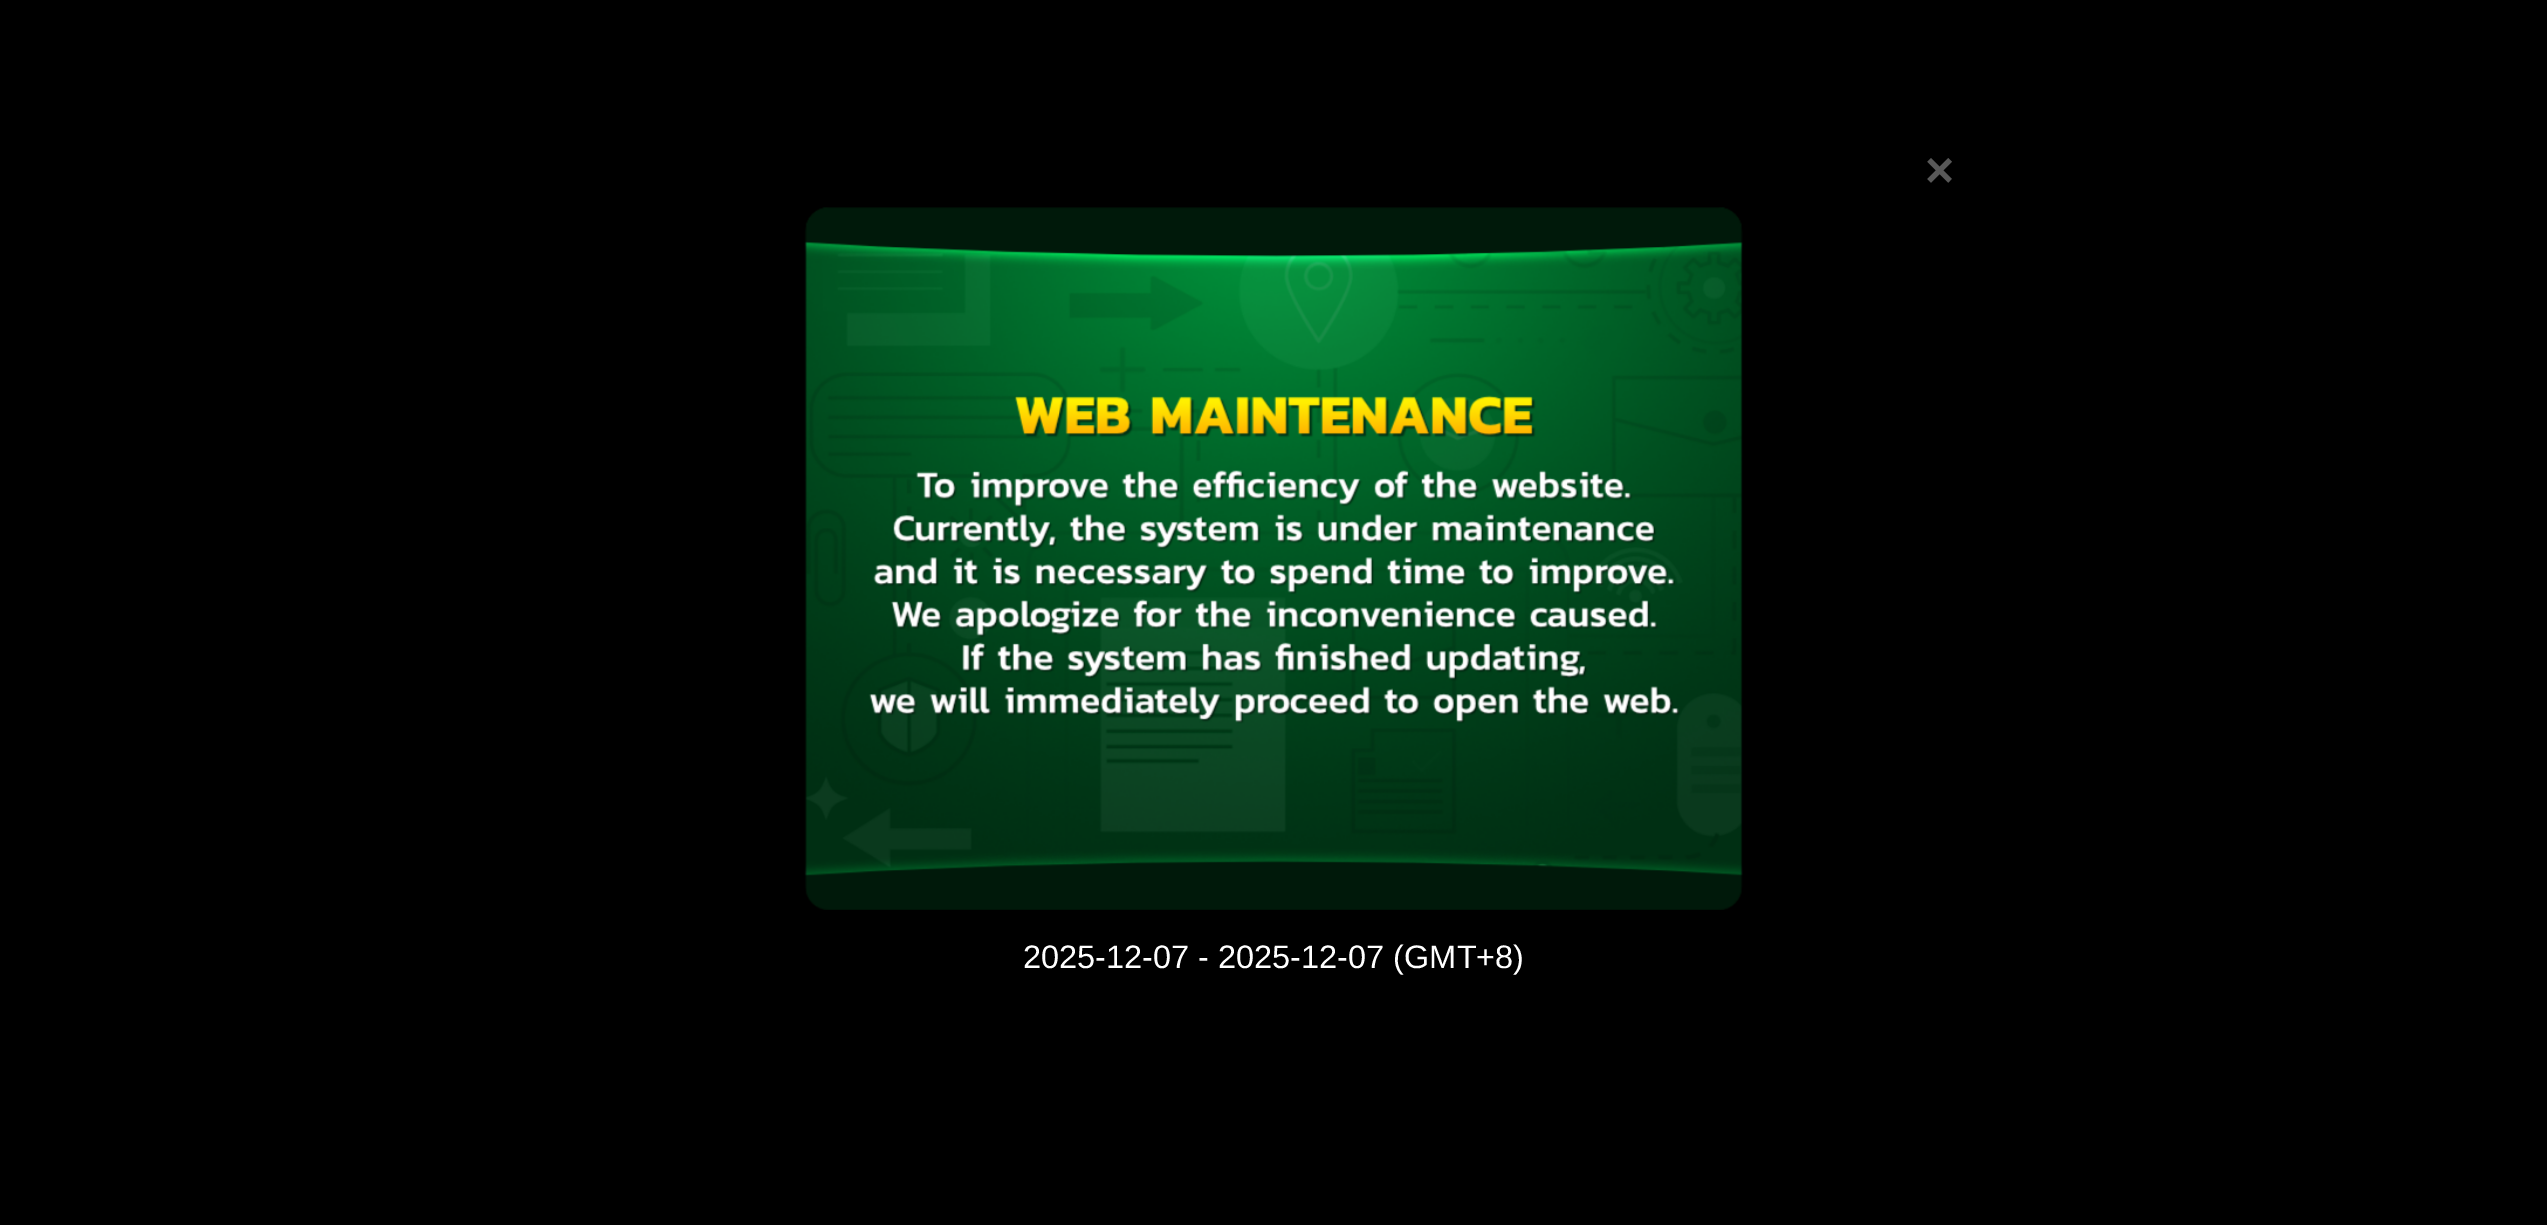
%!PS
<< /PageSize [2547 1225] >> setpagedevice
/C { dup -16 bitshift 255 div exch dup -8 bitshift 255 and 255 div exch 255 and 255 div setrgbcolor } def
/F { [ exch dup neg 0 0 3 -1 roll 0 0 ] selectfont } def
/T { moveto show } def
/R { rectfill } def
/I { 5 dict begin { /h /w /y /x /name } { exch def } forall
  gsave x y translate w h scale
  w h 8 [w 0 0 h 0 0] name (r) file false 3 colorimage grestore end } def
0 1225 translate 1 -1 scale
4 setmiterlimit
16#000000 C
0 0 2547 1225 R
/LiberationSans-Bold 50 F
16#585858 C
(×) 1925 187 T
(1.rgb) 804 207 939 703 I
/LiberationSans-Regular 32.5 F
16#FFFFFF C
(2025-12-07 - 2025-12-07 \(GMT+8\)) 1023 968 T
showpage
